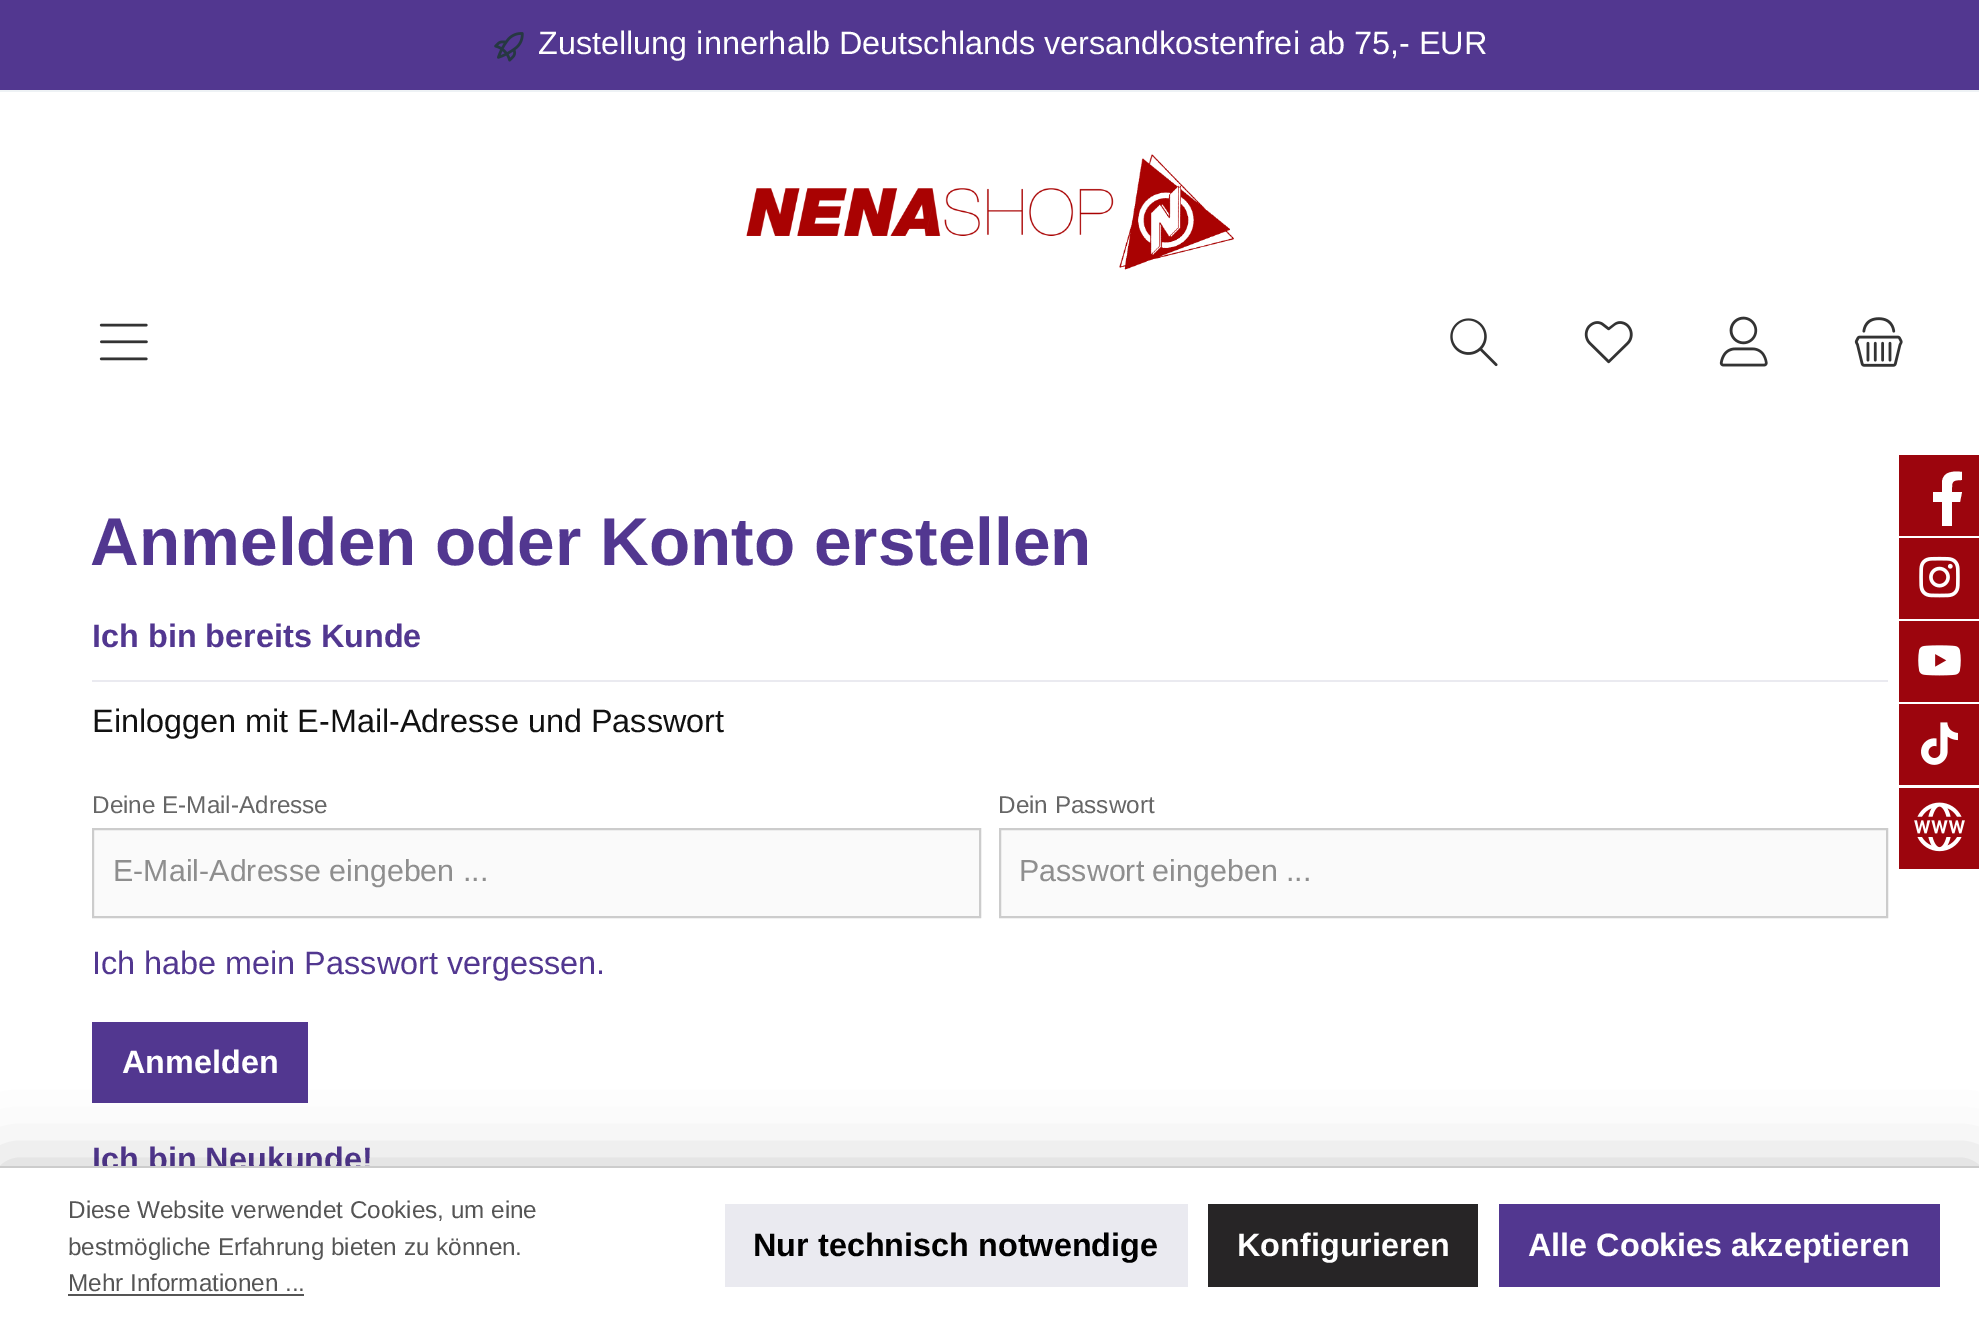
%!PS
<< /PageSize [1979 1321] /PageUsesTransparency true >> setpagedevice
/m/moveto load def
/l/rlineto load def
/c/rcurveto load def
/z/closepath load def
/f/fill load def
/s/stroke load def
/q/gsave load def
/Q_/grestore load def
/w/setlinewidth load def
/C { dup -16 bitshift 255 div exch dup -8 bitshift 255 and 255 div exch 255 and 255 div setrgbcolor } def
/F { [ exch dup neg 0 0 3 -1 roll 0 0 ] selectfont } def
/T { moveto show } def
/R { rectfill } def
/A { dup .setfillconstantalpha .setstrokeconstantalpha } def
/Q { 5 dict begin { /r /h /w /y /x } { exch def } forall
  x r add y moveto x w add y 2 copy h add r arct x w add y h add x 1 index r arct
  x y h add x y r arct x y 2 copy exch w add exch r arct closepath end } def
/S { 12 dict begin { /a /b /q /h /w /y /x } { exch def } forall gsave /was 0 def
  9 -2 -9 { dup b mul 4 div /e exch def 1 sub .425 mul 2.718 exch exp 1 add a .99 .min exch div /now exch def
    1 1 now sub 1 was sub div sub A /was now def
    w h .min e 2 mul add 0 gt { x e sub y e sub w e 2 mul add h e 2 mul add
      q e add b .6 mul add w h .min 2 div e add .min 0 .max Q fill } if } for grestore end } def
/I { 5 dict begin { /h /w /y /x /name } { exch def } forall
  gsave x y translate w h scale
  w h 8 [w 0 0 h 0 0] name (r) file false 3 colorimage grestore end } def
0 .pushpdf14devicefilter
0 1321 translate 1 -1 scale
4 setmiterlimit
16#FFFFFF C
0 0 1979 1321 R
16#523790 C
0 0 1979 90 R
16#EEF2F5 C
0 90 1979 2 R
(1.rgb) 494 32 30 30 I
/LiberationSans-Regular 32.4 F
16#FFFFFF C
(Zustellung innerhalb Deutschlands versandkostenfrei ab 75,- EUR) 538 54 T
(2.rgb) 746 154 488 116 I
(3.rgb) 99 323 49 38 I
(4.rgb) 1450 318 48 49 I
(5.rgb) 1584 321 49 43 I
(6.rgb) 1719 316 49 51 I
(7.rgb) 1854 317 49 50 I
/LiberationSans-Bold 67.5 F
16#523790 C
(Anmelden oder Konto erstellen) 90 565 T
16#EAEAF0 C
92 680 1796 2 R
/LiberationSans-Bold 32.4 F
16#523790 C
(Ich bin bereits Kunde) 92 647 T
/LiberationSans-Regular 32.4 F
16#111111 C
(Einloggen mit E-Mail-Adresse und Passwort) 92 732 T
/LiberationSans-Regular 24.25 F
16#666666 C
(Deine E-Mail-Adresse) 92 813 T
16#FAFAFA C
95 830 884 86 R
16#CCCCCC C
2 w
93 829 887 88 rectstroke
/LiberationSans-Regular 30.4 F
16#8E8E8E C
(E-Mail-Adresse eingeben ...) 113 881 T
/LiberationSans-Regular 24.25 F
16#666666 C
(Dein Passwort) 998 813 T
16#FAFAFA C
1000 829 m 887 0 l 0 88 l -887 0 l z q f Q_
16#CCCCCC C
s
/LiberationSans-Regular 30.4 F
16#8E8E8E C
(Passwort eingeben ...) 1019 881 T
/LiberationSans-Regular 32.4 F
16#523790 C
(Ich habe mein Passwort vergessen.) 92 974 T
92 1022 216 81 R
/LiberationSans-Bold 32.4 F
16#FFFFFF C
(Anmelden) 122 1073 T
16#523790 C
(Ich bin Neukunde!) 92 1170 T
16#9C050D C
1899 455 80 81 R
16#FFFFFF C
1960 502 m 2 -10 l -10 0 l 0 -10 -1 -12 10 -12 c 0 -8 l -8 -1 -19 -1 -20 10 c 0 10 l -9 0 l 0 10 l 9 0 l 0 24 l 10 0 l 0 -24 l z f
16#9C050D C
1899 538 80 81 R
(8.rgb) 1919 556 41 42 I
1899 621 80 81 R
(9.rgb) 1918 645 43 31 I
1899 704 80 81 R
(10.rgb) 1921 722 37 43 I
1899 788 80 81 R
(11.rgb) 1914 802 51 50 I
16#000000 C
0 1166 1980 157 0 34 .2 S
16#FFFFFF C
0 1168 1979 153 R
16#CCCCCC C
0 1166 1979 2 R
/LiberationSans-Regular 24.25 F
16#555555 C
(Diese Website verwendet Cookies, um eine) 68 1218 T
(bestmögliche Erfahrung bieten zu können.) 68 1255 T
(Mehr Informationen ...) 68 1291 T
68 1294 236 2 R
16#EAEAF0 C
725 1204 463 83 R
/LiberationSans-Bold 32.4 F
16#000000 C
(Nur technisch notwendige) 753 1256 T
16#272526 C
1208 1204 270 83 R
16#FFFFFF C
(Konfigurieren) 1237 1256 T
16#523790 C
1499 1204 441 83 R
16#FFFFFF C
(Alle Cookies akzeptieren) 1528 1256 T
.poppdf14devicefilter showpage
